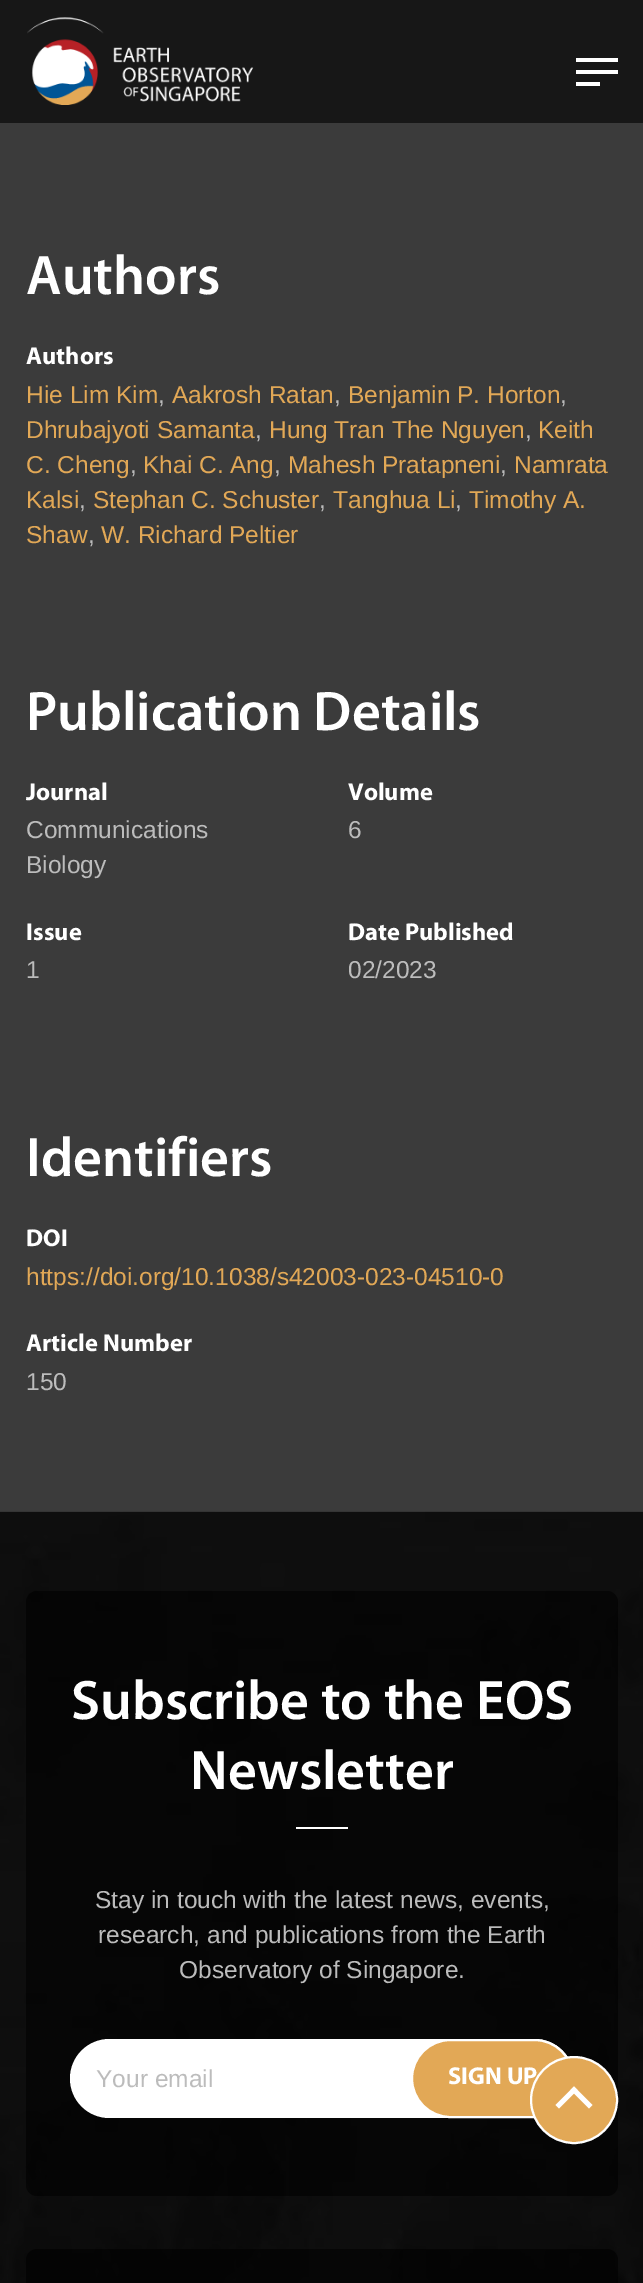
%!PS
<< /PageSize [643 2283] /PageUsesTransparency true >> setpagedevice
/m/moveto load def
/l/rlineto load def
/z/closepath load def
/f/fill load def
/s/stroke load def
/q/gsave load def
/Q_/grestore load def
/w/setlinewidth load def
/C { dup -16 bitshift 255 div exch dup -8 bitshift 255 and 255 div exch 255 and 255 div setrgbcolor } def
/F { [ exch dup neg 0 0 3 -1 roll 0 0 ] selectfont } def
/T { moveto show } def
/R { rectfill } def
/A { dup .setfillconstantalpha .setstrokeconstantalpha } def
/O { newpath 0 360 arc closepath } def
/Q { 5 dict begin { /r /h /w /y /x } { exch def } forall
  x r add y moveto x w add y 2 copy h add r arct x w add y h add x 1 index r arct
  x y h add x y r arct x y 2 copy exch w add exch r arct closepath end } def
/I { 5 dict begin { /h /w /y /x /name } { exch def } forall
  gsave x y translate w h scale
  w h 8 [w 0 0 h 0 0] name (r) file false 3 colorimage grestore end } def
0 .pushpdf14devicefilter
0 2283 translate 1 -1 scale
4 setmiterlimit
16#3B3B3B C
0 0 643 2283 R
16#171717 C
0 0 643 123 R
(1.rgb) 27 17 227 88 I
16#FFFFFF C
576 58 42 4 R
576 70 42 4 R
576 82 24 4 R
/Myriad-SemiBold 56 F
(Authors) 26 294 T
/Myriad-Bold 24.5 F
(Authors) 26 364 T
/LiberationSans-Regular 24.5 F
16#E2A856 C
(Hie Lim Kim) 26 403 T
16#BCBCBC C
(,) 158 403 T
16#E2A856 C
(Aakrosh Ratan) 172 403 T
16#BCBCBC C
(,) 334 403 T
16#E2A856 C
(Benjamin P. Horton) 348 403 T
16#BCBCBC C
(,) 560 403 T
16#E2A856 C
(Dhrubajyoti Samanta) 26 438 T
16#BCBCBC C
(,) 255 438 T
16#E2A856 C
(Hung Tran The Nguyen) 269 438 T
16#BCBCBC C
(,) 525 438 T
16#E2A856 C
(Keith) 538 438 T
(C. Cheng) 26 473 T
16#BCBCBC C
(,) 130 473 T
16#E2A856 C
(Khai C. Ang) 143 473 T
16#BCBCBC C
(,) 274 473 T
16#E2A856 C
(Mahesh Pratapneni) 288 473 T
16#BCBCBC C
(,) 500 473 T
16#E2A856 C
(Namrata) 514 473 T
(Kalsi) 26 508 T
16#BCBCBC C
(,) 79 508 T
16#E2A856 C
(Stephan C. Schuster) 93 508 T
16#BCBCBC C
(,) 319 508 T
16#E2A856 C
(Tanghua Li) 333 508 T
16#BCBCBC C
(,) 455 508 T
16#E2A856 C
(Timothy A.) 469 508 T
(Shaw) 26 543 T
16#BCBCBC C
(,) 88 543 T
16#E2A856 C
(W. Richard Peltier) 101 543 T
/Myriad-SemiBold 56 F
16#FFFFFF C
(Publication Details) 26 730 T
/Myriad-Bold 24.5 F
(Journal) 26 800 T
/LiberationSans-Regular 24.5 F
16#BCBCBC C
(Communications) 26 838 T
(Biology) 26 873 T
/Myriad-Bold 24.5 F
16#FFFFFF C
(Volume) 348 800 T
/LiberationSans-Regular 24.5 F
16#BCBCBC C
(6) 348 838 T
/Myriad-Bold 24.5 F
16#FFFFFF C
(Issue) 26 940 T
/LiberationSans-Regular 24.5 F
16#BCBCBC C
(1) 26 978 T
/Myriad-Bold 24.5 F
16#FFFFFF C
(Date Published) 348 940 T
/LiberationSans-Regular 24.5 F
16#BCBCBC C
(02/2023) 348 978 T
/Myriad-SemiBold 56 F
16#FFFFFF C
(Identifiers) 26 1176 T
/Myriad-Bold 24.5 F
(DOI) 26 1246 T
/LiberationSans-Regular 24.5 F
16#E2A856 C
(https://doi.org/10.1038/s42003-023-04510-0) 26 1285 T
/Myriad-Bold 24.5 F
16#FFFFFF C
(Article Number) 26 1351 T
/LiberationSans-Regular 24.5 F
16#BCBCBC C
(150) 26 1390 T
(2.rgb) 0 1511 643 772 I
0.6 A
16#000000 C
26 1591 592 605 11 Q f
/Myriad-SemiBold 56 F
1 A
16#FFFFFF C
(Subscribe to the EOS) 71 1719 T
(Newsletter) 190 1789 T
296 1827 52 2 R
/LiberationSans-Regular 24.5 F
16#BCBCBC C
(Stay in touch with the latest news, events,) 95 1908 T
(research, and publications from the Earth) 98 1943 T
(Observatory of Singapore.) 179 1978 T
16#FFFFFF C
70 2039 504 79 39.5 Q f
16#BCBCBC C
(Your email) 96 2087 T
16#E2A856 C
412 2040 161 77 38.5 Q q f Q_
16#FFFFFF C
2 w
s
/Myriad-Bold 24.5 F
(SIGN UP) 448 2084 T
0.6 A
16#000000 C
26 2249 592 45 11 Q f
1 A
16#E2A856 C
574 2100 43 O q f Q_
16#FFFFFF C
s
559 2108.5 m -3.5 -3.5 l 18.5 -18.5 l 3.5 3.5 l z f
589 2108.5 m -18.5 -18.5 l 3.5 -3.5 l 18.5 18.5 l z f
.poppdf14devicefilter showpage
